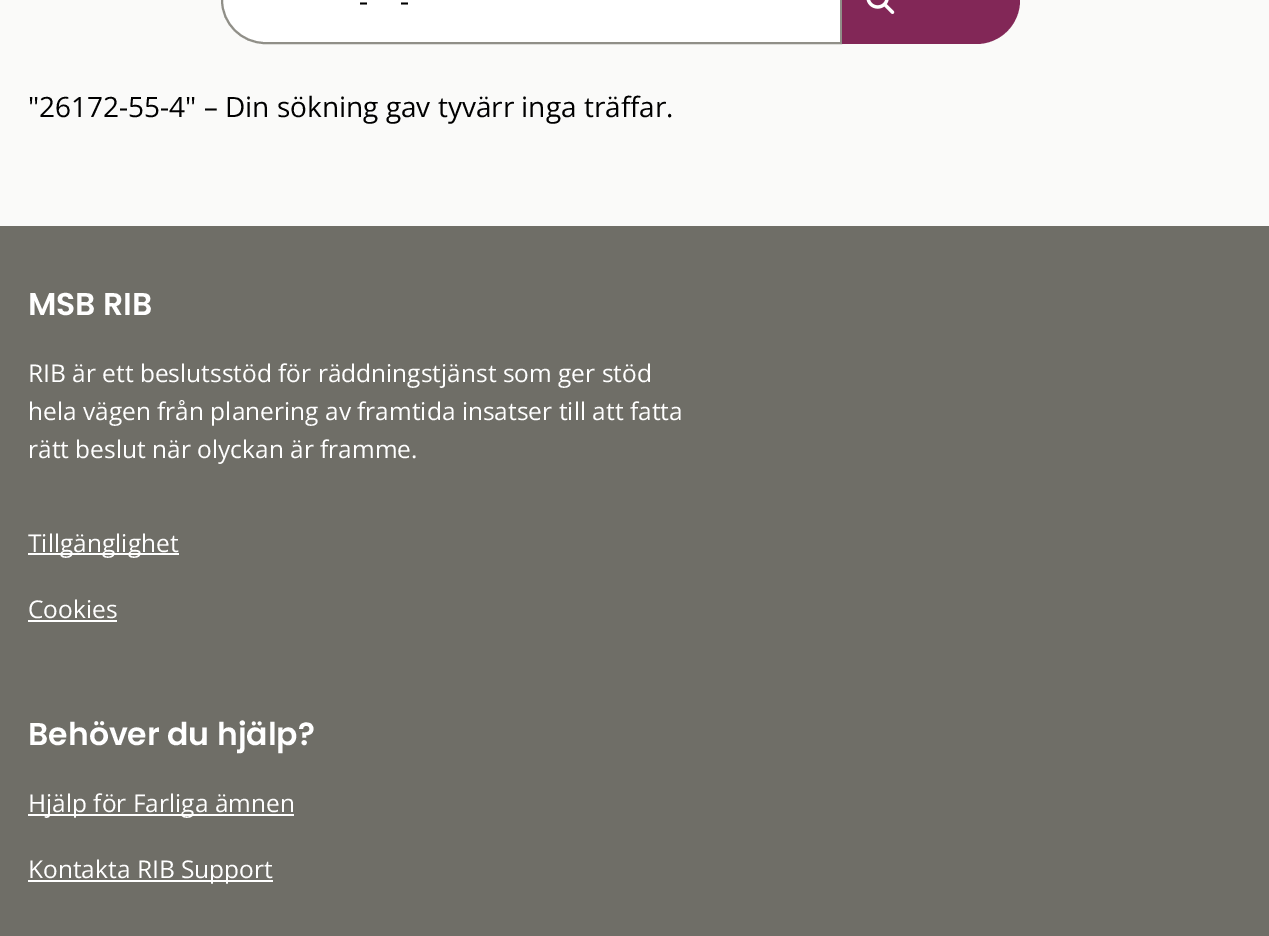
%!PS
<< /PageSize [1269 936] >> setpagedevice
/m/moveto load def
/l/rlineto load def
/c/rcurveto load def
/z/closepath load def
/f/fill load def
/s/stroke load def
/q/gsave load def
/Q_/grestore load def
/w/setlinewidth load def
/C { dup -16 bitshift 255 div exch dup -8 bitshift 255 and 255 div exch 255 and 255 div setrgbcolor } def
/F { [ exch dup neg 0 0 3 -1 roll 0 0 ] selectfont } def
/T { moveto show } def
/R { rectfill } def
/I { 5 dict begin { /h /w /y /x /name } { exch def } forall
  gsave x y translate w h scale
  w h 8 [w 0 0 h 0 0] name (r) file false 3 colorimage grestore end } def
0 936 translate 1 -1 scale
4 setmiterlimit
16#FAFAF9 C
0 0 1269 936 R
16#FFFFFF C
265 -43 m 576 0 l 0 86 l -576 0 l -23.5 0 -43 -19.5 -43 -43 c 0 -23.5 19.5 -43 43 -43 c z q f Q_
16#908F88 C
2 w
s
/OpenSans-Regular 28 F
16#000000 C
(-) 359 11 T
(-) 400 11 T
16#822757 C
842 -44 m 134 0 l 24.5 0 44 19.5 44 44 c 0 24.5 -19.5 44 -44 44 c -134 0 l z f
(1.rgb) 866 0 29 14 I
16#000000 C
("26172-55-4" – Din sökning gav tyvärr inga träffar.) 28 117 T
16#6F6E67 C
0 226 1269 710 R
/Poppins-SemiBold 31.5 F
16#FFFFFF C
(MSB RIB) 28 315 T
/OpenSans-Regular 24.5 F
(RIB är ett beslutsstöd för räddningstjänst som ger stöd) 28 382 T
(hela vägen från planering av framtida insatser till att fatta) 28 420 T
(rätt beslut när olyckan är framme.) 28 458 T
28 553 151 2 R
(Tillgänglighet) 28 552 T
(Cookies) 28 618 T
28 620 89 2 R
/Poppins-SemiBold 31.5 F
(Behöver du hjälp?) 28 745 T
28 814 266 2 R
/OpenSans-Regular 24.5 F
(Hjälp för Farliga ämnen) 28 812 T
28 880 245 2 R
(Kontakta RIB Support) 28 878 T
showpage
